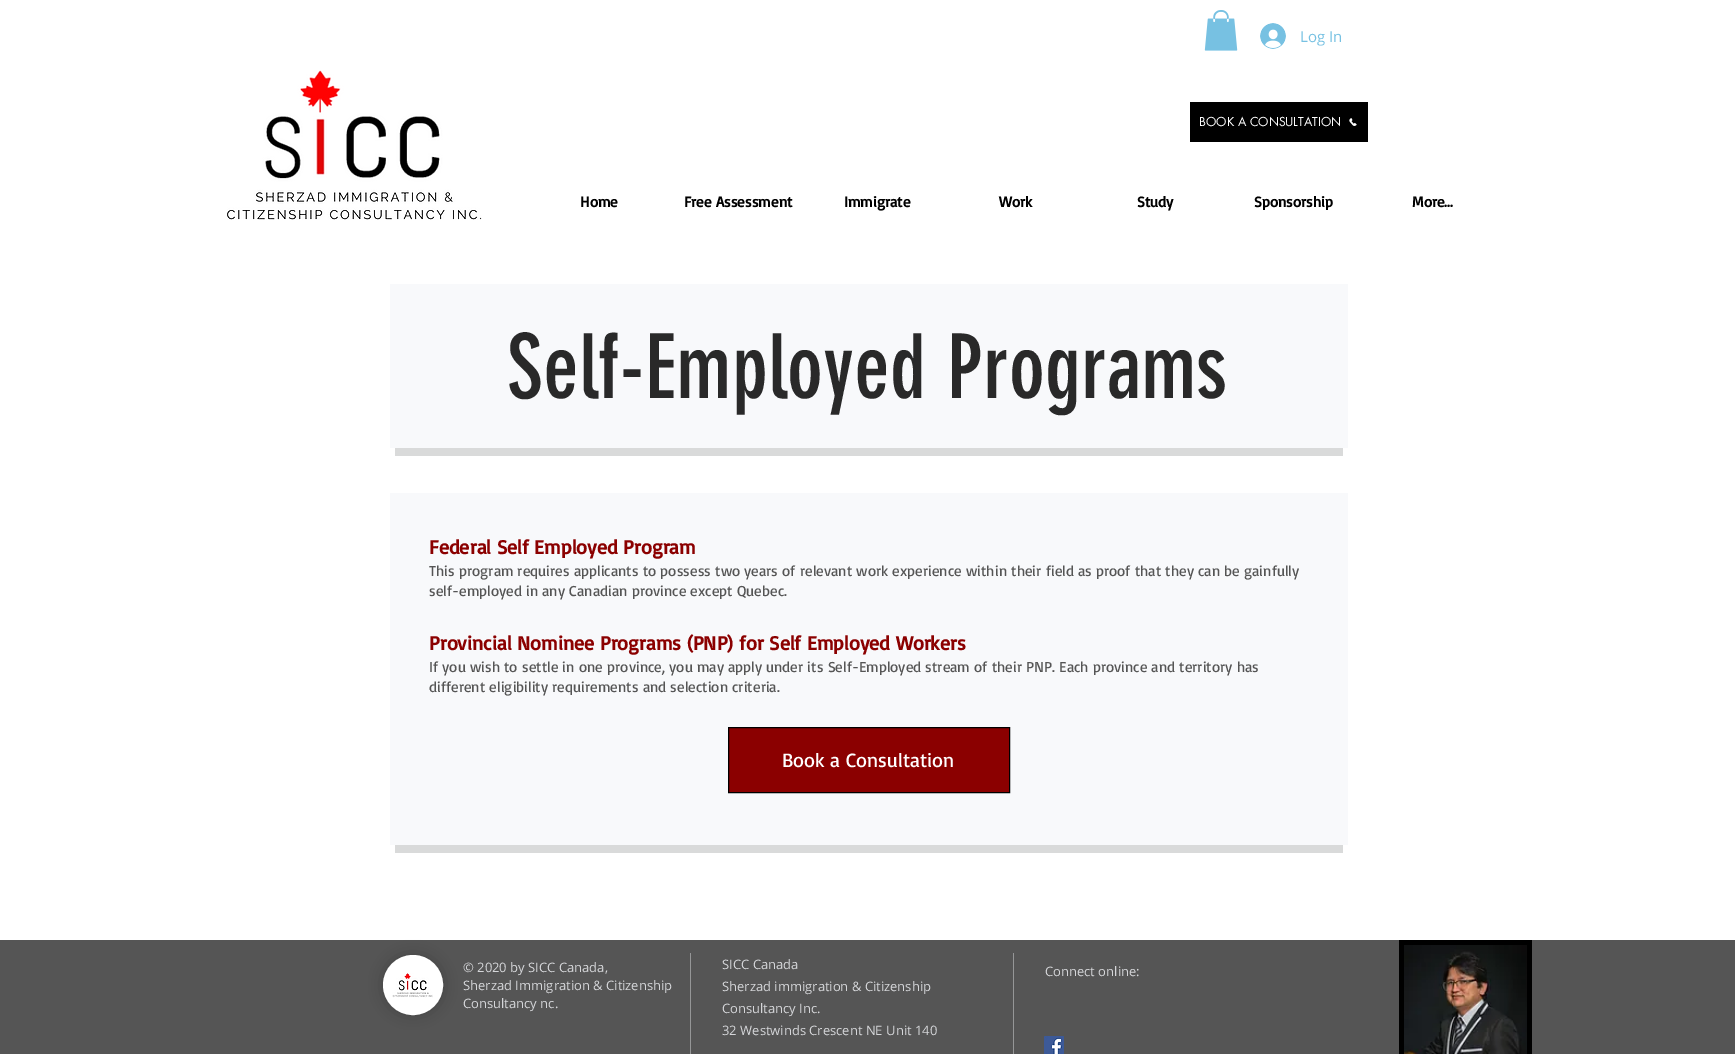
%!PS
<< /PageSize [1735 1054] /PageUsesTransparency true >> setpagedevice
/m/moveto load def
/l/rlineto load def
/z/closepath load def
/f/fill load def
/s/stroke load def
/q/gsave load def
/Q_/grestore load def
/w/setlinewidth load def
/C { dup -16 bitshift 255 div exch dup -8 bitshift 255 and 255 div exch 255 and 255 div setrgbcolor } def
/F { [ exch dup neg 0 0 3 -1 roll 0 0 ] selectfont } def
/T { moveto show } def
/R { rectfill } def
/A { dup .setfillconstantalpha .setstrokeconstantalpha } def
/O { newpath 0 360 arc closepath } def
/Q { 5 dict begin { /r /h /w /y /x } { exch def } forall
  x r add y moveto x w add y 2 copy h add r arct x w add y h add x 1 index r arct
  x y h add x y r arct x y 2 copy exch w add exch r arct closepath end } def
/S { 12 dict begin { /a /b /q /h /w /y /x } { exch def } forall gsave /was 0 def
  9 -2 -9 { dup b mul 4 div /e exch def 1 sub .425 mul 2.718 exch exp 1 add a .99 .min exch div /now exch def
    1 1 now sub 1 was sub div sub A /was now def
    w h .min e 2 mul add 0 gt { x e sub y e sub w e 2 mul add h e 2 mul add
      q e add b .6 mul add w h .min 2 div e add .min 0 .max Q fill } if } for grestore end } def
/I { 5 dict begin { /h /w /y /x /name } { exch def } forall
  gsave x y translate w h scale
  w h 8 [w 0 0 h 0 0] name (r) file false 3 colorimage grestore end } def
0 .pushpdf14devicefilter
0 1054 translate 1 -1 scale
4 setmiterlimit
16#FFFFFF C
0 0 1735 1054 R
(1.rgb) 1204 10 34 41 I
(2.rgb) 1260 23 26 26 I
/OpenSans-Regular 15 F
16#77C1E2 C
(Log In) 1300 42 T
(3.rgb) 227 70 255 150 I
16#000000 C
1190 102 178 40 R
/futura-Regular 12 F
16#FFFFFF C
(BOOK A CONSULTATION) 1199 126 T
(4.rgb) 1349 118 8 8 I
/Basic-Bold 15 F
16#000000 C
(Home) 580 207 T
(Free Assessment) 684 207 T
(Immigrate) 844 207 T
(Work) 999 207 T
(Study) 1137 207 T
(Sponsorship) 1254 207 T
(More...) 1412 207 T
16#D9DADA C
395 448 948 8 R
16#F8F9FB C
390 284 958 164 R
/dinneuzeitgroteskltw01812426-Regular 88 F
16#292929 C
(Self-Employed Programs) 507 398 T
16#D9DADA C
395 845 948 8 R
16#F8F9FB C
390 493 958 352 R
/Basic-Bold 20 F
16#8B0000 C
(Federal Self Employed Program) 429 554 T
/Basic-Regular 15 F
16#555555 C
(This program requires applicants to possess two years of relevant work experience within their field as proof that they can be gainfully) 429 576 T
(self-employed in any Canadian province except Quebec.) 429 596 T
/Basic-Bold 20 F
16#8B0000 C
(Provincial Nominee Programs \(PNP\) for Self Employed Workers) 429 650 T
/Basic-Regular 15 F
16#555555 C
(If you wish to settle in one province, you may apply under its Self-Employed stream of their PNP. Each province and territory has) 429 672 T
(different eligibility requirements and selection criteria.) 429 692 T
16#8B0000 C
728.5 727.5 m 281 0 l 0 65 l -281 0 l z q f Q_
16#000000 C
s
/Basic-Regular 20 F
16#FFFFFF C
(Book a Consultation) 782 767 T
16#555555 C
0 940 1735 114 R
16#000000 C
383 955 60 60 30 7 .2 S
16#FFFFFF C
413 985 27 O q f Q_
6 w
s
(5.rgb) 392 973 41 25 I
/OpenSans-Regular 13 F
16#D5D6D9 C
(© 2020 by SICC Canada,) 463 972 T
(Sherzad Immigration & Citizenship) 463 990 T
(Consultancy nc.) 463 1008 T
16#959697 C
690 953 1 101 R
16#D5D6D9 C
(SICC Canada) 722 969 T
(Sherzad immigration & Citizenship) 722 991 T
(Consultancy Inc.) 722 1013 T
(32 Westwinds Crescent NE Unit 140) 722 1035 T
16#959697 C
1013 953 1 101 R
16#D5D6D9 C
(Connect online:) 1045 976 T
16#000000 C
1399 940 133 114 R
(6.rgb) 1404 945 123 109 I
(7.rgb) 1044 1036 20 18 I
.poppdf14devicefilter showpage
